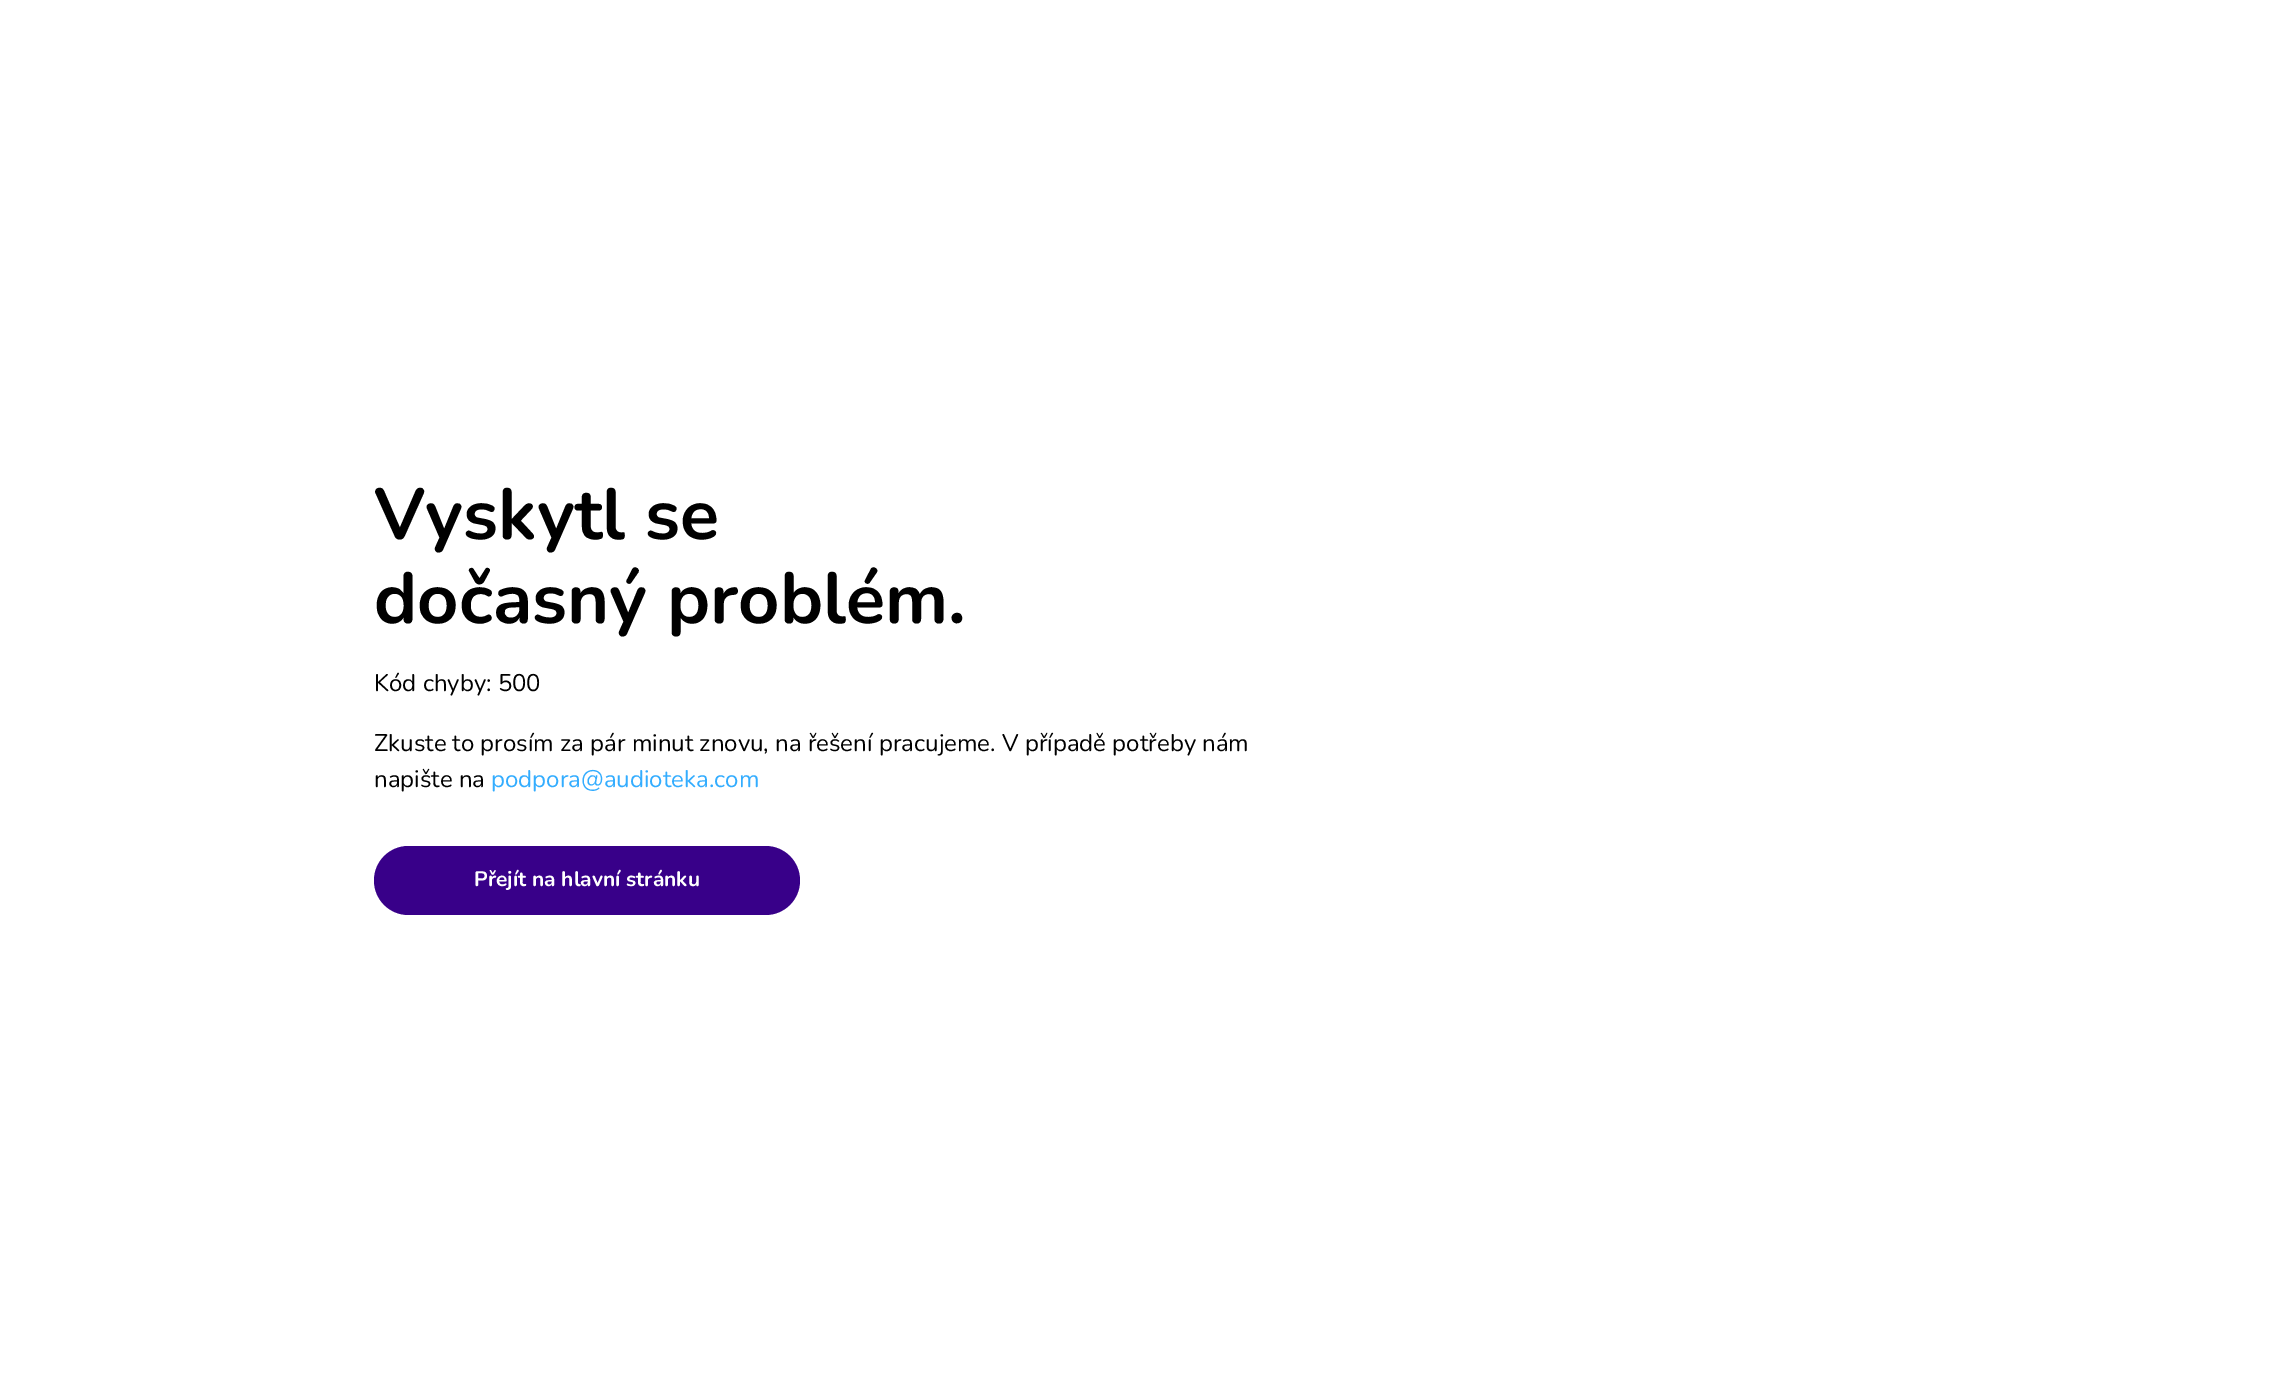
%!PS
<< /PageSize [2274 1387] >> setpagedevice
/f/fill load def
/C { dup -16 bitshift 255 div exch dup -8 bitshift 255 and 255 div exch 255 and 255 div setrgbcolor } def
/F { [ exch dup neg 0 0 3 -1 roll 0 0 ] selectfont } def
/T { moveto show } def
/R { rectfill } def
/Q { 5 dict begin { /r /h /w /y /x } { exch def } forall
  x r add y moveto x w add y 2 copy h add r arct x w add y h add x 1 index r arct
  x y h add x y r arct x y 2 copy exch w add exch r arct closepath end } def
0 1387 translate 1 -1 scale
4 setmiterlimit
16#FFFFFF C
0 0 2274 1387 R
/Nunito-Bold 72 F
16#000000 C
(Vyskytl se) 374 539 T
(dočasný problém.) 374 623 T
/Nunito-Regular 24 F
(Kód chyby: 500) 374 691 T
(Zkuste to prosím za pár minut znovu, na řešení pracujeme. V případě potřeby nám) 374 751 T
(napište na) 374 787 T
16#33ADFF C
(podpora@audioteka.com) 491 787 T
16#380089 C
374 846 426 69 34.5 Q f
/Nunito-Bold 21 F
16#FFFFFF C
(Přejít na hlavní stránku) 474 886 T
showpage
